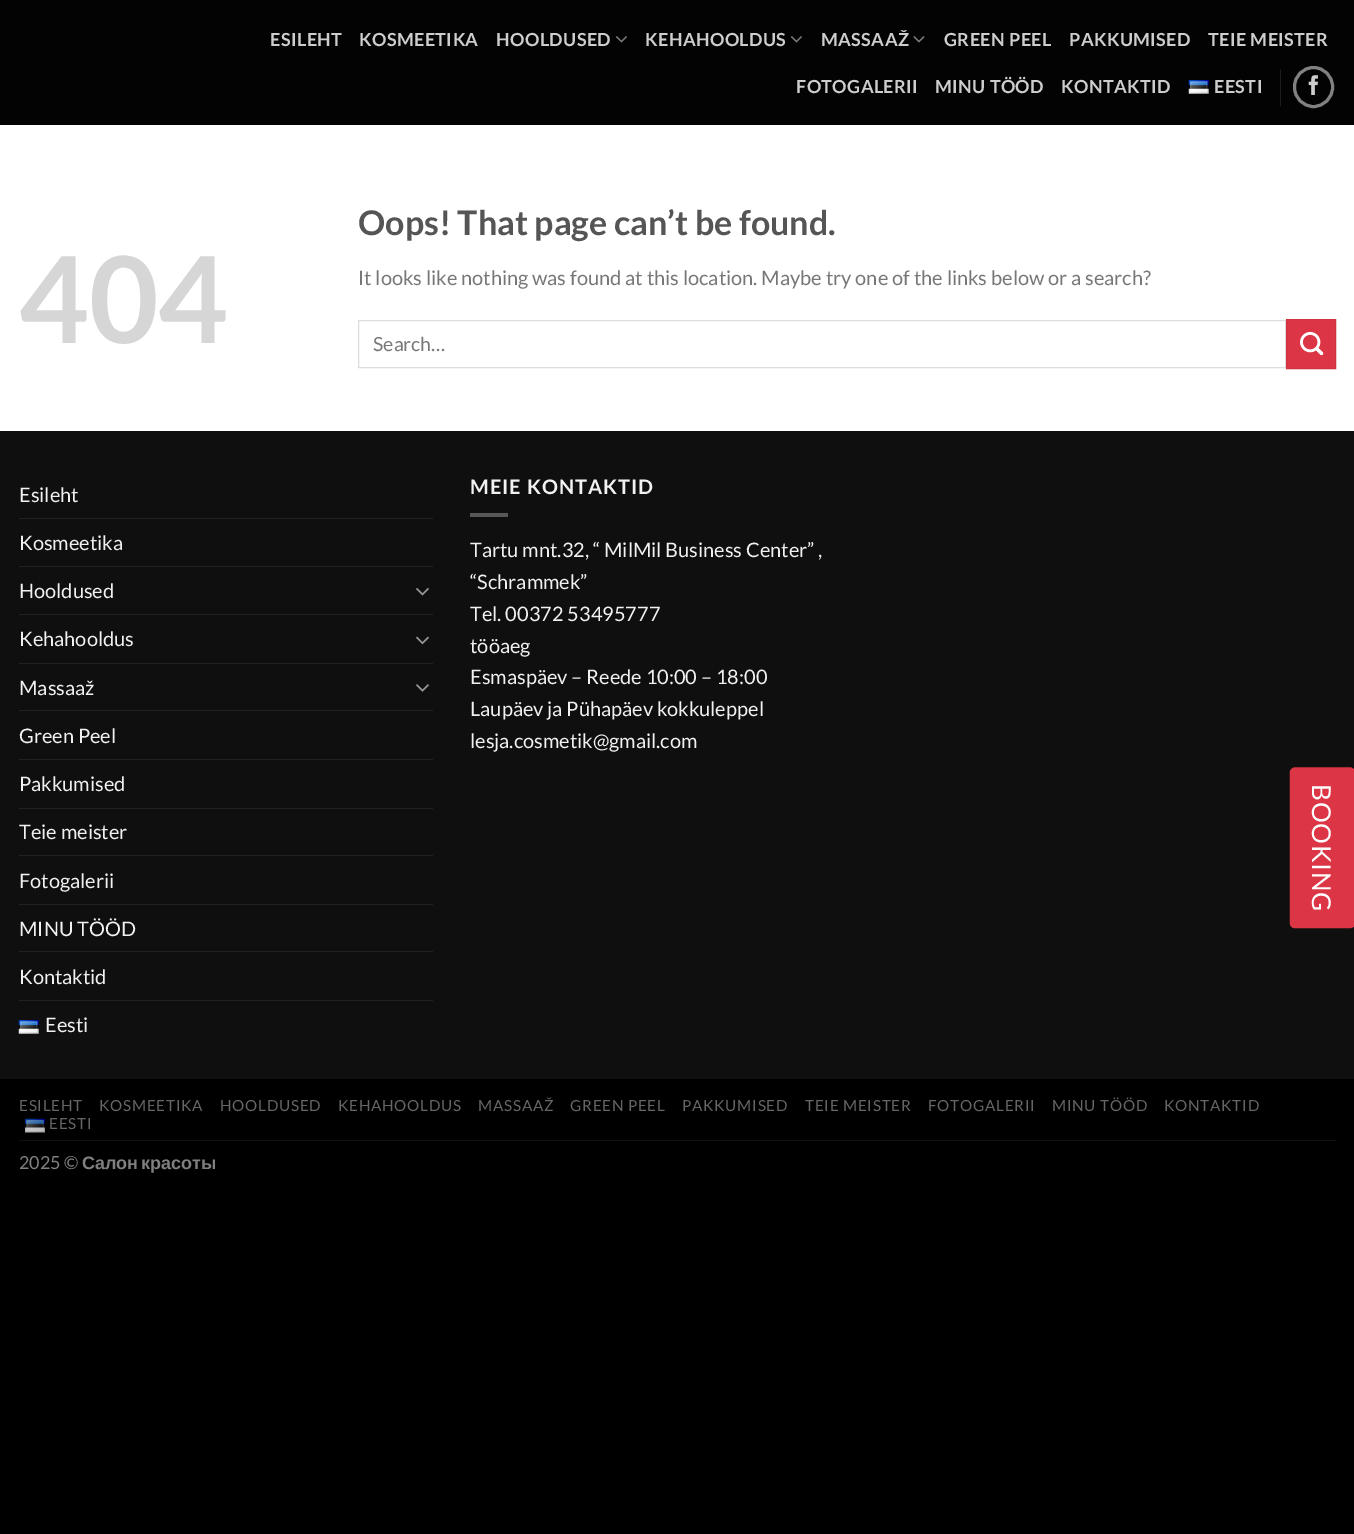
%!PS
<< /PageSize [1354 1534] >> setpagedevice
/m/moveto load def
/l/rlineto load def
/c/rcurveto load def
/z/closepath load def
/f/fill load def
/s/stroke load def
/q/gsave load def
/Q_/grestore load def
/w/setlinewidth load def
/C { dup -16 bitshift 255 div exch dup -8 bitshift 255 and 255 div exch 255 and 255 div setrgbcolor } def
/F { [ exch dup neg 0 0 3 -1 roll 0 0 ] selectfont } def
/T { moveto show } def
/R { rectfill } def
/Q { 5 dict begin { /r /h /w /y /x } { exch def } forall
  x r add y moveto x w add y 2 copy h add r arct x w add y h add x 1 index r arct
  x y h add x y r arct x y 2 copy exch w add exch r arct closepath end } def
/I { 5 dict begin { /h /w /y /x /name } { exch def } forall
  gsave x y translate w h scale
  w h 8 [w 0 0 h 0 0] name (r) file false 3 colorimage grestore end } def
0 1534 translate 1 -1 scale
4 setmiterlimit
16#000000 C
0 0 1354 1534 R
16#FFFFFF C
0 125 1354 306 R
16#030303 C
0 0 1354 125 R
/Lato-Bold 18 F
16#CDCDCD C
270 46 m .4 0 (ESILEHT) ashow
359 46 m .4 0 (KOSMEETIKA) ashow
496 46 m .4 0 (HOOLDUSED) ashow
(1.rgb) 616 36 11 7 I
645 46 m .4 0 (KEHAHOOLDUS) ashow
(1.rgb) 791 36 11 7 I
821 46 m .4 0 (MASSAAŽ) ashow
(2.rgb) 913 36 12 7 I
944 46 m .4 0 (GREEN PEEL) ashow
1069 46 m .4 0 (PAKKUMISED) ashow
1208 46 m .4 0 (TEIE MEISTER) ashow
796 93 m .4 0 (FOTOGALERII) ashow
935 93 m .4 0 (MINU TÖÖD) ashow
1061 93 m .4 0 (KONTAKTID) ashow
(3.rgb) 1188 80 21 14 I
1214 93 m .4 0 (EESTI) ashow
16#1C1C1C C
1280 69 1 37 R
16#818181 C
3 w
1294.5 67.5 38 39 19 Q s
(4.rgb) 1308 75 10 20 I
/Lato-Bold 120 F
16#D6D6D6 C
(404) 19 343 T
/Lato-Bold 34 F
16#555555 C
(Oops! That page can’t be found.) 358 235 T
/Lato-Regular 20 F
16#777777 C
(It looks like nothing was found at this location. Maybe try one of the links below or a search?) 358 285 T
16#DDDDDD C
1 w
358.5 320.5 927 47 rectstroke
/Lato-Regular 19.5 F
16#777777 C
(Search…) 373 351 T
16#DC3545 C
1286.5 319.5 m 49 0 l 0 49 l -49 0 l z q f Q_
16#D13242 C
s
(5.rgb) 1300 331 24 25 I
16#0F0F0F C
0 431 1354 648 R
16#DC3545 C
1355 772 m 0 151 l 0 3 -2 5 -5 5 c -55 0 l -3 0 -5 -2 -5 -5 c 0 -151 l 0 -2 2 -4 5 -4 c 55 0 l 3 0 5 2 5 4 c z f
1.2 w
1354.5 772.5 m 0 150.5 l 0 2.5 -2 4.5 -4.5 4.5 c -55 0 l -2.5 0 -4.5 -2 -4.5 -4.5 c 0 -150.5 l 0 -2.5 2 -4.5 4.5 -4.5 c 55 0 l 2.5 0 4.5 2 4.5 4.5 c z s
/Lato-Regular 26 F
16#FFFFFF C
q 1312 784 translate 90 rotate 0 0 m .75 0 (BOOKING) ashow Q_
/Lato-Regular 20 F
16#F1F1F1 C
(Esileht) 19 502 T
16#222222 C
19 518 414 1 R
16#F1F1F1 C
(Kosmeetika) 19 550 T
16#222222 C
19 566 414 1 R
16#F1F1F1 C
(Hooldused) 19 598 T
(6.rgb) 416 588 13 8 I
16#222222 C
19 614 414 1 R
16#F1F1F1 C
(Kehahooldus) 19 646 T
(7.rgb) 416 636 13 9 I
16#222222 C
19 663 414 1 R
16#F1F1F1 C
(Massaaž) 19 695 T
(8.rgb) 416 684 13 8 I
16#222222 C
19 710 414 1 R
16#F1F1F1 C
(Green Peel) 19 743 T
16#222222 C
19 759 414 1 R
16#F1F1F1 C
(Pakkumised) 19 791 T
16#222222 C
19 808 414 1 R
16#F1F1F1 C
(Teie meister) 19 839 T
16#222222 C
19 855 414 1 R
16#F1F1F1 C
(Fotogalerii) 19 888 T
16#222222 C
19 904 414 1 R
16#F1F1F1 C
(MINU TÖÖD) 19 936 T
16#222222 C
19 951 414 1 R
16#F1F1F1 C
(Kontaktid) 19 984 T
16#222222 C
19 1000 414 1 R
(9.rgb) 18 1020 21 14 I
16#F1F1F1 C
(Eesti) 45 1032 T
/Lato-Bold 20 F
470 494 m 1 0 (MEIE KONTAKTID) ashow
16#575757 C
470 513 38 4 R
/Lato-Regular 20 F
16#F1F1F1 C
(Tartu mnt.32, “ MilMil Business Center” ,) 470 557 T
(“Schrammek”) 470 589 T
(Tel. 00372 53495777) 470 621 T
(tööaeg) 470 653 T
(Esmaspäev – Reede 10:00 – 18:00) 470 684 T
(Laupäev ja Pühapäev kokkuleppel) 470 716 T
(lesja.cosmetik@gmail.com) 470 748 T
16#101010 C
19 1140 1317 1 R
/Lato-Regular 15.25 F
16#666666 C
19 1111 m .75 0 (ESILEHT) ashow
99 1111 m .75 0 (KOSMEETIKA) ashow
220 1111 m .75 0 (HOOLDUSED) ashow
338 1111 m .75 0 (KEHAHOOLDUS) ashow
478 1111 m .75 0 (MASSAAŽ) ashow
570 1111 m .75 0 (GREEN PEEL) ashow
682 1111 m .75 0 (PAKKUMISED) ashow
805 1111 m .75 0 (TEIE MEISTER) ashow
928 1111 m .75 0 (FOTOGALERII) ashow
1052 1111 m .75 0 (MINU TÖÖD) ashow
1164 1111 m .75 0 (KONTAKTID) ashow
(10.rgb) 25 1118 20 15 I
49 1129 m .75 0 (EESTI) ashow
/Lato-Regular 18 F
16#808080 C
(2025 ©) 19 1169 T
/LiberationSans-Bold 18 F
82 1169 m -2 0 32 (Салон красоты) widthshow
showpage
